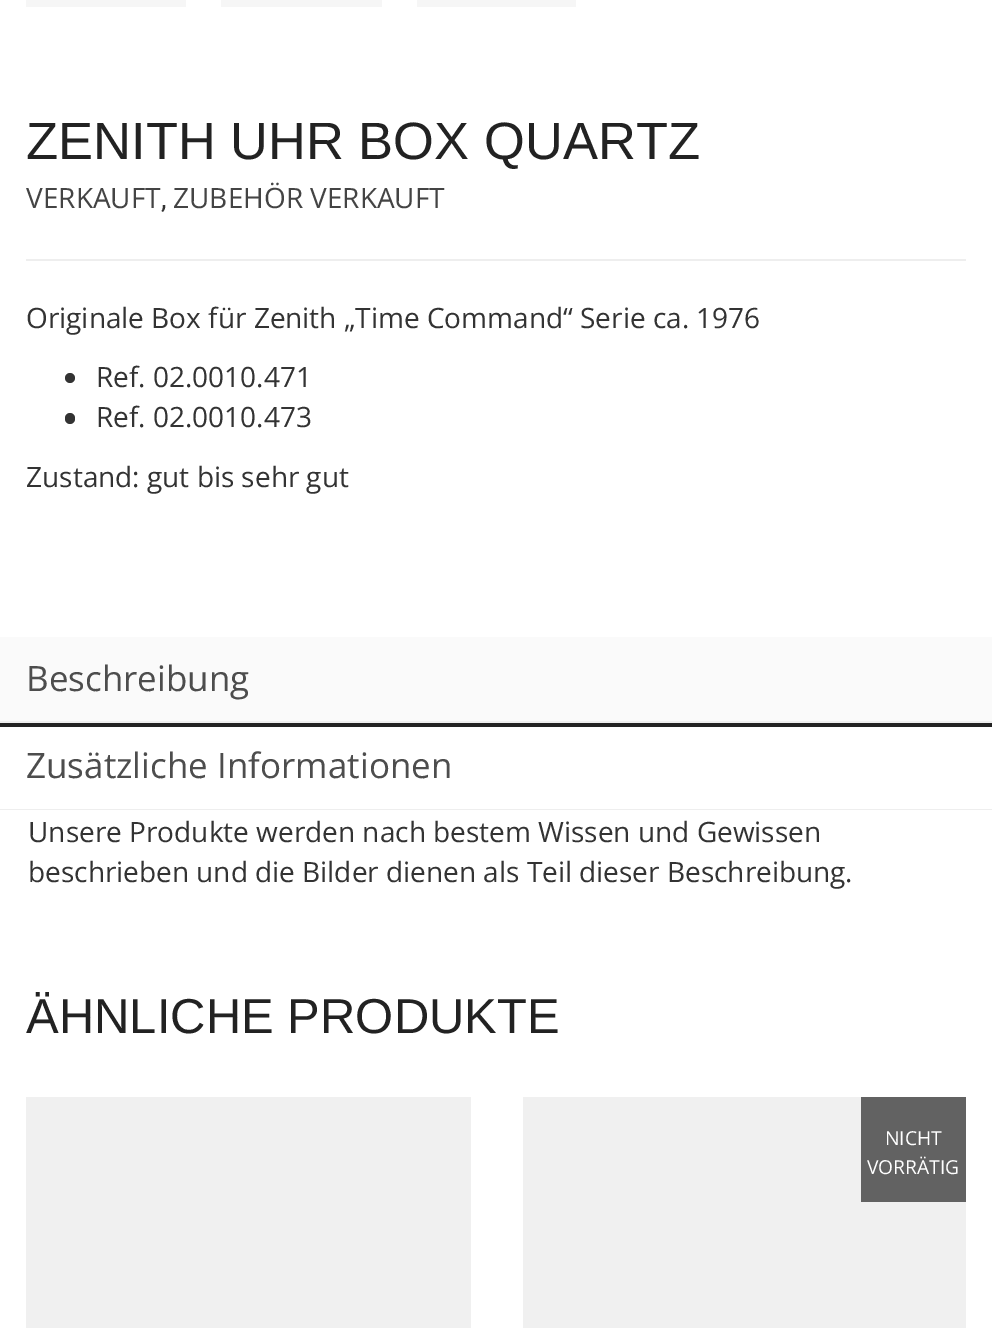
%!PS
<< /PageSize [992 1328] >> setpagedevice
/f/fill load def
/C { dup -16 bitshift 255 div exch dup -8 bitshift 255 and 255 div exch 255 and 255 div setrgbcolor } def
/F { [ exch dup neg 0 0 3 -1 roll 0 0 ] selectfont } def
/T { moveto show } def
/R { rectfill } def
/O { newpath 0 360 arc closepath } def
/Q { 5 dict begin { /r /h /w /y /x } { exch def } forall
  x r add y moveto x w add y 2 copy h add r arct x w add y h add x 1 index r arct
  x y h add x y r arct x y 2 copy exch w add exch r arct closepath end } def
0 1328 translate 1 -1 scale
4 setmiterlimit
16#FFFFFF C
0 0 992 1328 R
16#F6F6F6 C
26 0 160 7 R
221 0 161 7 R
417 0 159 7 R
/Arimo-Regular 52.5 F
16#222222 C
(ZENITH UHR BOX QUARTZ) 26 159 T
/OpenSans-Regular 28 F
16#444444 C
(VERKAUFT) 26 208 T
/RobotoCondensed-Regular 28 F
16#333333 C
(,) 161 208 T
/OpenSans-Regular 28 F
16#444444 C
(ZUBEHÖR VERKAUFT) 173 208 T
16#EEEEEE C
26 259 940 2 R
16#333333 C
(Originale Box für Zenith „Time Command“ Serie ca. 1976) 26 328 T
70 378 5 O f
(Ref. 02.0010.471) 96 387 T
65 413 10 11 5 Q f
(Ref. 02.0010.473) 96 427 T
(Zustand: gut bis sehr gut) 26 487 T
16#FAFAFA C
0 637 992 84 R
16#222222 C
0 723 992 4 R
16#EEEEEE C
0 721 992 2 R
/OpenSans-Regular 35 F
16#4D4D4D C
(Beschreibung) 26 691 T
16#EEEEEE C
0 809 992 1 R
16#4D4D4D C
(Zusätzliche Informationen) 26 778 T
/OpenSans-Regular 28 F
16#333333 C
(Unsere Produkte werden nach bestem Wissen und Gewissen) 28 842 T
(beschrieben und die Bilder dienen als Teil dieser Beschreibung.) 28 882 T
/Arimo-Regular 49 F
16#222222 C
(ÄHNLICHE PRODUKTE) 26 1033 T
16#F0F0F0 C
26 1097 445 231 R
523 1097 443 231 R
16#626262 C
861 1097 105 105 R
/OpenSans-Regular 19.25 F
16#FFFFFF C
(NICHT) 885 1145 T
(VORRÄTIG) 867 1174 T
showpage
